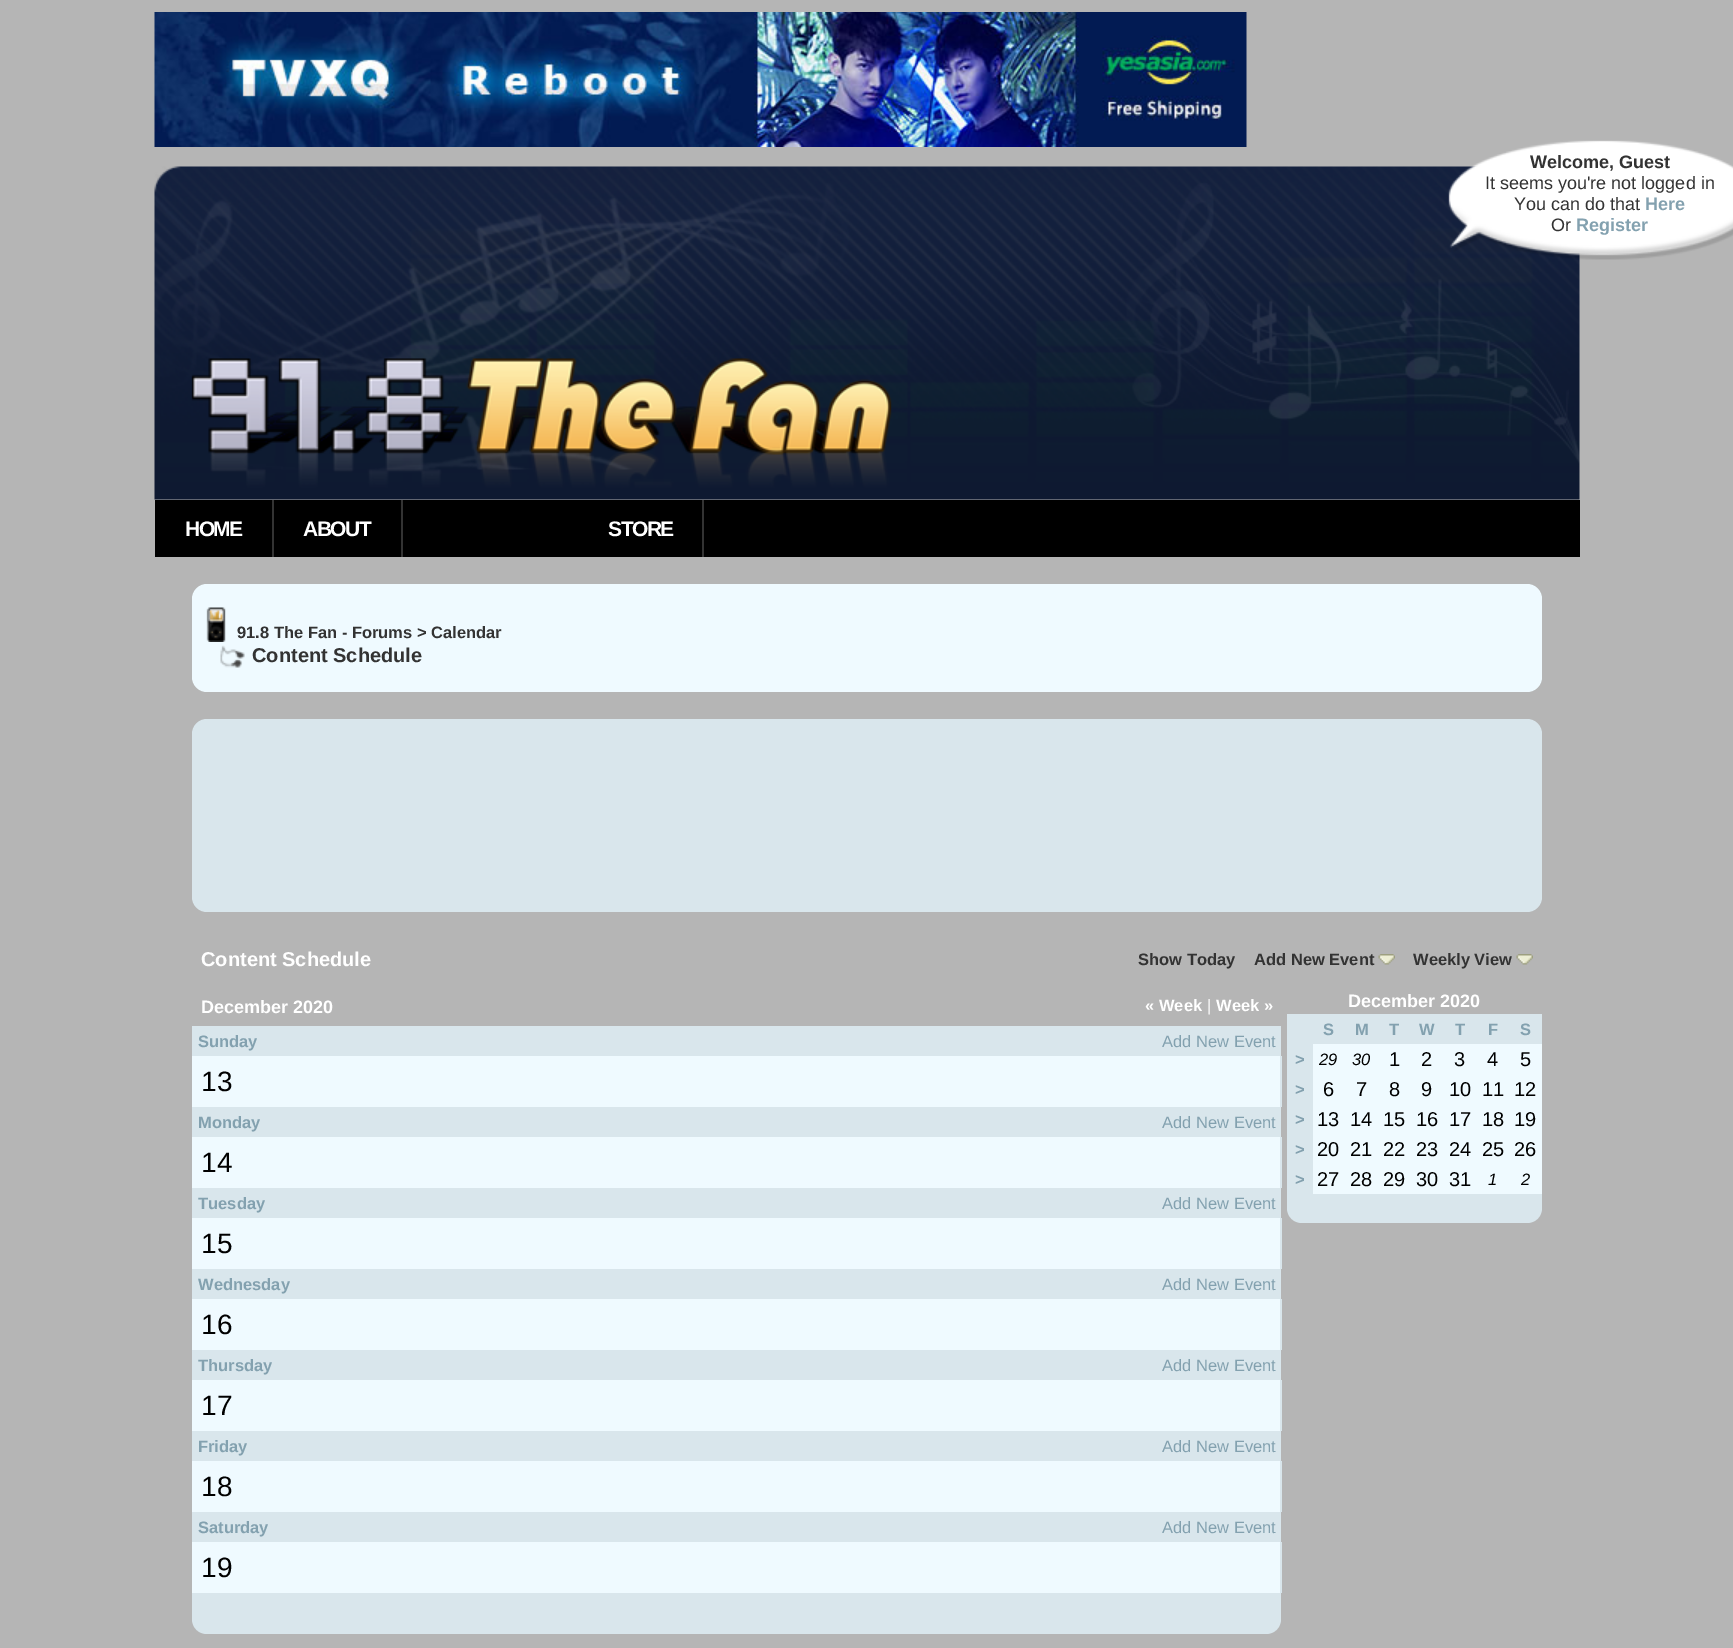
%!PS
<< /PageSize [1733 1648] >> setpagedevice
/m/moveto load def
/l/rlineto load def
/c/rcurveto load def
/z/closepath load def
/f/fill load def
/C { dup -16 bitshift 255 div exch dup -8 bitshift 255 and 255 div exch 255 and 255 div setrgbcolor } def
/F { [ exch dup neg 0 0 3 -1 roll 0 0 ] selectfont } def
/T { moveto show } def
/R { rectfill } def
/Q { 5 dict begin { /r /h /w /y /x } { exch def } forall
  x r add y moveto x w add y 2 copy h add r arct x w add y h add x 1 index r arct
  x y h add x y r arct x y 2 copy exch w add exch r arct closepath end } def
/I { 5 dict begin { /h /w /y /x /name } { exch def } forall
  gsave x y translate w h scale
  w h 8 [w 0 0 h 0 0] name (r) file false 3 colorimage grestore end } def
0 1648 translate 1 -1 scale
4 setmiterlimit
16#B5B5B5 C
0 0 1733 1648 R
(1.rgb) 154 12 1093 135 I
(3.rgb) 154 166 1426 334 I
(2.rgb) 1448 140 285 120 I
/LiberationSans-Bold 18 F
16#333333 C
(Welcome, Guest) 1530 168 T
/LiberationSans-Regular 18 F
(It seems you're not logged in) 1485 189 T
(You can do that) 1514 210 T
/LiberationSans-Bold 18 F
16#83A1AF C
(Here) 1645 210 T
/LiberationSans-Regular 18 F
16#333333 C
(Or) 1551 231 T
/LiberationSans-Bold 18 F
16#83A1AF C
(Register) 1576 231 T
16#000000 C
155 500 1425 57 R
16#333333 C
272 500 2 57 R
/LiberationSans-Bold 21 F
16#FFFFFF C
185 536 m -1.5 0 (HOME) ashow
16#333333 C
401 500 2 57 R
16#FFFFFF C
303 536 m -1.5 0 (ABOUT) ashow
16#333333 C
702 500 2 57 R
16#FFFFFF C
608 536 m -1.5 0 (STORE) ashow
16#EFFAFF C
192 584 1350 108 15 Q f
(4.rgb) 206 607 20 35 I
/LiberationSans-Bold 16.5 F
16#333333 C
(91.8 The Fan - Forums) 237 638 T
(> Calendar) 417 638 T
(5.rgb) 220 645 25 23 I
/LiberationSans-Bold 20 F
(Content Schedule) 252 662 T
16#D9E6EC C
192 719 1350 193 15 Q f
16#FFFFFF C
(Content Schedule) 201 966 T
/LiberationSans-Bold 16.5 F
16#333333 C
(Show Today) 1138 965 T
(Add New Event) 1254 965 T
(6.rgb) 1378 954 17 11 I
(Weekly View) 1413 965 T
(7.rgb) 1516 954 17 11 I
/LiberationSans-Bold 18 F
16#FFFFFF C
(December 2020) 201 1013 T
/LiberationSans-Bold 16.5 F
(« Week) 1145 1011 T
/LiberationSans-Regular 16.5 F
(|) 1207 1011 T
/LiberationSans-Bold 16.5 F
(Week ») 1216 1011 T
16#D9E6EC C
192 1026 1089 30 R
16#83A1AF C
(Sunday) 198 1047 T
/LiberationSans-Regular 16.5 F
(Add New Event) 1162 1047 T
16#EFFAFF C
192 1056 1088 51 R
/LiberationSans-Regular 28 F
16#000000 C
(13) 201 1091 T
16#D9E6EC C
1280 1056 2 51 R
192 1107 1089 30 R
/LiberationSans-Bold 16.5 F
16#83A1AF C
(Monday) 198 1128 T
/LiberationSans-Regular 16.5 F
(Add New Event) 1162 1128 T
16#EFFAFF C
192 1137 1088 51 R
/LiberationSans-Regular 28 F
16#000000 C
(14) 201 1172 T
16#D9E6EC C
1280 1137 2 51 R
192 1188 1089 30 R
/LiberationSans-Bold 16.5 F
16#83A1AF C
(Tuesday) 198 1209 T
/LiberationSans-Regular 16.5 F
(Add New Event) 1162 1209 T
16#EFFAFF C
192 1218 1088 51 R
/LiberationSans-Regular 28 F
16#000000 C
(15) 201 1253 T
16#D9E6EC C
1280 1218 2 51 R
192 1269 1089 30 R
/LiberationSans-Bold 16.5 F
16#83A1AF C
(Wednesday) 198 1290 T
/LiberationSans-Regular 16.5 F
(Add New Event) 1162 1290 T
16#EFFAFF C
192 1299 1088 51 R
/LiberationSans-Regular 28 F
16#000000 C
(16) 201 1334 T
16#D9E6EC C
1280 1299 2 51 R
192 1350 1089 30 R
/LiberationSans-Bold 16.5 F
16#83A1AF C
(Thursday) 198 1371 T
/LiberationSans-Regular 16.5 F
(Add New Event) 1162 1371 T
16#EFFAFF C
192 1380 1088 51 R
/LiberationSans-Regular 28 F
16#000000 C
(17) 201 1415 T
16#D9E6EC C
1280 1380 2 51 R
192 1431 1089 30 R
/LiberationSans-Bold 16.5 F
16#83A1AF C
(Friday) 198 1452 T
/LiberationSans-Regular 16.5 F
(Add New Event) 1162 1452 T
16#EFFAFF C
192 1461 1088 51 R
/LiberationSans-Regular 28 F
16#000000 C
(18) 201 1496 T
16#D9E6EC C
1280 1461 2 51 R
192 1512 1089 30 R
/LiberationSans-Bold 16.5 F
16#83A1AF C
(Saturday) 198 1533 T
/LiberationSans-Regular 16.5 F
(Add New Event) 1162 1533 T
16#EFFAFF C
192 1542 1088 51 R
/LiberationSans-Regular 28 F
16#000000 C
(19) 201 1577 T
16#D9E6EC C
1280 1542 2 51 R
192 1593 m 50 0 l 0 41 l -35 0 l -8.5 0 -15 -6.5 -15 -15 c z f
242 1593 m 1039 0 l 0 26 l 0 8.5 -6.5 15 -15 15 c -1024 0 l z f
/LiberationSans-Bold 18 F
16#FFFFFF C
(December 2020) 1348 1007 T
16#D9E6EC C
1287 1014 255 30 R
/LiberationSans-Bold 16.5 F
16#83A1AF C
(S) 1323 1035 T
(M) 1355 1035 T
(T) 1389 1035 T
(W) 1419 1035 T
(T) 1455 1035 T
(F) 1488 1035 T
(S) 1520 1035 T
16#D9E6EC C
1287 1044 26 150 R
16#83A1AF C
(>) 1295 1065 T
16#EFFAFF C
1313 1044 229 30 R
/LiberationSans-Italic 16.5 F
16#000000 C
(29) 1319 1065 T
(30) 1352 1065 T
/LiberationSans-Regular 20 F
(1) 1389 1066 T
(2) 1421 1066 T
(3) 1454 1066 T
(4) 1487 1066 T
(5) 1520 1066 T
/LiberationSans-Bold 16.5 F
16#83A1AF C
(>) 1295 1095 T
16#EFFAFF C
1313 1074 229 30 R
/LiberationSans-Regular 20 F
16#000000 C
(6) 1323 1096 T
(7) 1356 1096 T
(8) 1389 1096 T
(9) 1421 1096 T
(10) 1449 1096 T
(11) 1482 1096 T
(12) 1514 1096 T
/LiberationSans-Bold 16.5 F
16#83A1AF C
(>) 1295 1125 T
16#EFFAFF C
1313 1104 229 30 R
/LiberationSans-Regular 20 F
16#000000 C
(13) 1317 1126 T
(14) 1350 1126 T
(15) 1383 1126 T
(16) 1416 1126 T
(17) 1449 1126 T
(18) 1482 1126 T
(19) 1514 1126 T
/LiberationSans-Bold 16.5 F
16#83A1AF C
(>) 1295 1155 T
16#EFFAFF C
1313 1134 229 30 R
/LiberationSans-Regular 20 F
16#000000 C
(20) 1317 1156 T
(21) 1350 1156 T
(22) 1383 1156 T
(23) 1416 1156 T
(24) 1449 1156 T
(25) 1482 1156 T
(26) 1514 1156 T
/LiberationSans-Bold 16.5 F
16#83A1AF C
(>) 1295 1185 T
16#EFFAFF C
1313 1164 229 30 R
/LiberationSans-Regular 20 F
16#000000 C
(27) 1317 1186 T
(28) 1350 1186 T
(29) 1383 1186 T
(30) 1416 1186 T
(31) 1449 1186 T
/LiberationSans-Italic 16.5 F
(1) 1488 1185 T
(2) 1521 1185 T
16#D9E6EC C
1287 1194 m 26 0 l 0 29 l -11 0 l -8.5 0 -15 -6.5 -15 -15 c z f
1313 1194 196 29 R
1509 1194 m 33 0 l 0 14 l 0 8.5 -6.5 15 -15 15 c -18 0 l z f
showpage
